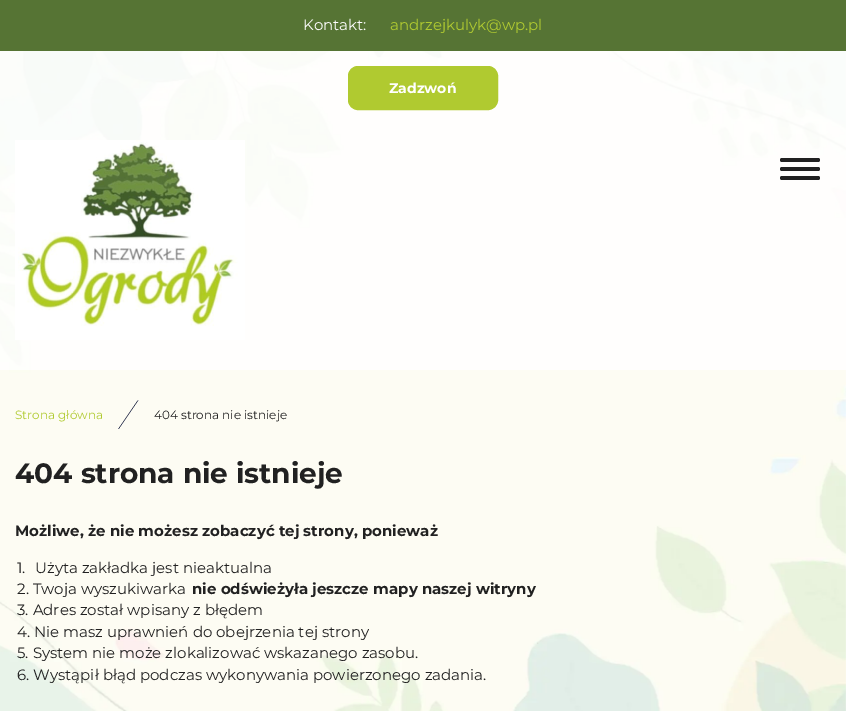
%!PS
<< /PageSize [846 711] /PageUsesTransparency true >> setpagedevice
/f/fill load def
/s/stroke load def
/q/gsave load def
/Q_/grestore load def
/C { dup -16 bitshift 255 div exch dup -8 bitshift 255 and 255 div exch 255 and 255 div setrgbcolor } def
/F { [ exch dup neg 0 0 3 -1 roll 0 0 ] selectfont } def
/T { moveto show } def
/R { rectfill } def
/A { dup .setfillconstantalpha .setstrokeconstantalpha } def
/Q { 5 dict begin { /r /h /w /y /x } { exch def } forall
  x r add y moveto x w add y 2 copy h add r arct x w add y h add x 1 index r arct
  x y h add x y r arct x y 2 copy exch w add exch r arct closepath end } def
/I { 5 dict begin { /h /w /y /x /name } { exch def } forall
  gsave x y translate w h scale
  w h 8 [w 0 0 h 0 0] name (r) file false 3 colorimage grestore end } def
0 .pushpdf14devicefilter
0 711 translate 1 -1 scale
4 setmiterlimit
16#FFFFFF C
0 0 846 711 R
(3.rgb) 0 51 846 660 I
0.8 A
0 51 846 319 R
1 A
16#567434 C
0 0 846 51 R
/Montserrat-Regular 15 F
16#FFFFFF C
(Kontakt:) 303 30 T
16#B0CA30 C
(andrzejkulyk@wp.pl) 390 30 T
348.5 66.5 149 43 9.5 Q q f Q_
s
/Montserrat-Bold 14 F
16#FFFFFF C
(Zadzwoń) 389 93 T
(1.rgb) 15 140 230 200 I
16#212121 C
780 158 40 4 2 Q f
780 167 40 4 2 Q f
780 176 40 4 2 Q f
/Montserrat-Regular 12 F
16#B0CA30 C
(Strona główna) 15 419 T
(2.rgb) 118 400 21 29 I
16#212121 C
(404 strona nie istnieje) 154 419 T
/Montserrat-Bold 28 F
(404 strona nie istnieje) 15 483 T
/Montserrat-Bold 15 F
(Możliwe, że nie możesz zobaczyć tej strony, ponieważ) 15 536 T
/Montserrat-Regular 15 F
(1.) 17 573 T
(Użyta zakładka jest nieaktualna) 35 573 T
(2. Twoja wyszukiwarka) 17 594 T
/Montserrat-Bold 15 F
(nie odświeżyła jeszcze mapy naszej witryny) 192 594 T
/Montserrat-Regular 15 F
(3. Adres został wpisany z błędem) 17 615 T
(4. Nie masz uprawnień do obejrzenia tej strony) 17 637 T
(5. System nie może zlokalizować wskazanego zasobu.) 17 658 T
(6. Wystąpił błąd podczas wykonywania powierzonego zadania.) 17 680 T
.poppdf14devicefilter showpage
